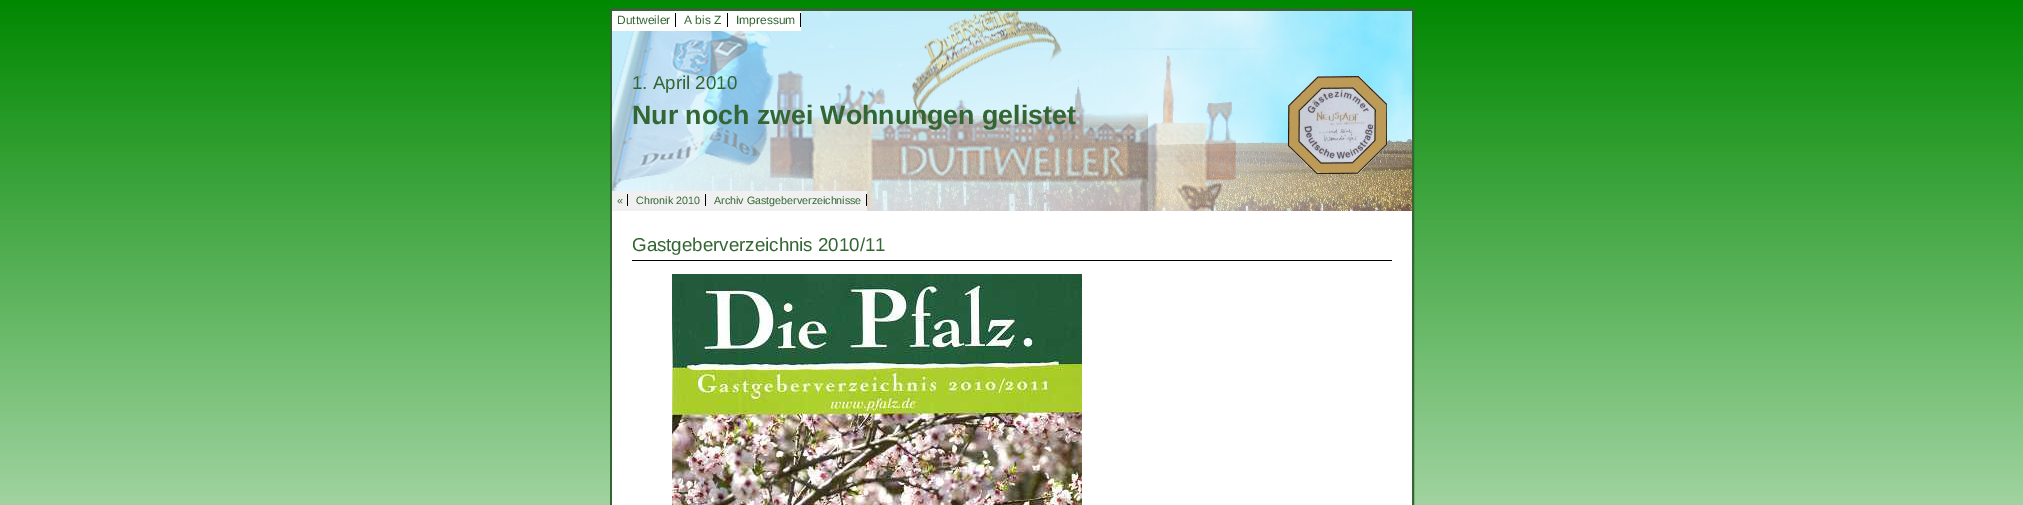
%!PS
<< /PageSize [2023 505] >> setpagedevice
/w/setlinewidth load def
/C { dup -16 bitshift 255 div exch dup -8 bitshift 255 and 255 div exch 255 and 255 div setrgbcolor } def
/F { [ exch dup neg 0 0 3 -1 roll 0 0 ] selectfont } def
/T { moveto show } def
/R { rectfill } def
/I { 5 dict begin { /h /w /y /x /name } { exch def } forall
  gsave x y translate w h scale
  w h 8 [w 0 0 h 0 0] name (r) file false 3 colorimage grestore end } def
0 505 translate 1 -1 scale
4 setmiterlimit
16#FFFFFF C
0 0 2023 505 R
(1.rgb) 0 0 2023 505 I
16#336633 C
2 w
611 9 802 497 rectstroke
(2.rgb) 612 11 800 200 I
612 10 800 1 R
16#FFFFFF C
612 11 189 20 R
/LiberationSans-Regular 12 F
16#336633 C
(Duttweiler) 617 24 T
16#000000 C
675 13 1 14 R
16#336633 C
(A bis Z) 684 24 T
16#000000 C
727 13 1 14 R
16#336633 C
(Impressum) 736 24 T
16#000000 C
800 13 1 14 R
/LiberationSans-Regular 18.7 F
16#336633 C
(1. April 2010) 632 89 T
/LiberationSans-Bold 26.7 F
(Nur noch zwei Wohnungen gelistet) 632 124 T
(3.rgb) 1288 76 99 98 I
16#F0F0F0 C
612 191 255 20 R
/LiberationSans-Regular 10.7 F
16#336633 C
(«) 617 204 T
16#000000 C
627 194 1 12 R
16#336633 C
(Chronik 2010) 636 204 T
16#000000 C
705 194 1 12 R
16#336633 C
(Archiv Gastgeberverzeichnisse) 714 204 T
16#000000 C
866 194 1 12 R
16#FFFFFF C
612 211 800 294 R
16#000000 C
632 260 760 1 R
/LiberationSans-Regular 18.7 F
16#336633 C
(Gastgeberverzeichnis 2010/11) 632 251 T
(4.rgb) 672 274 410 231 I
showpage
